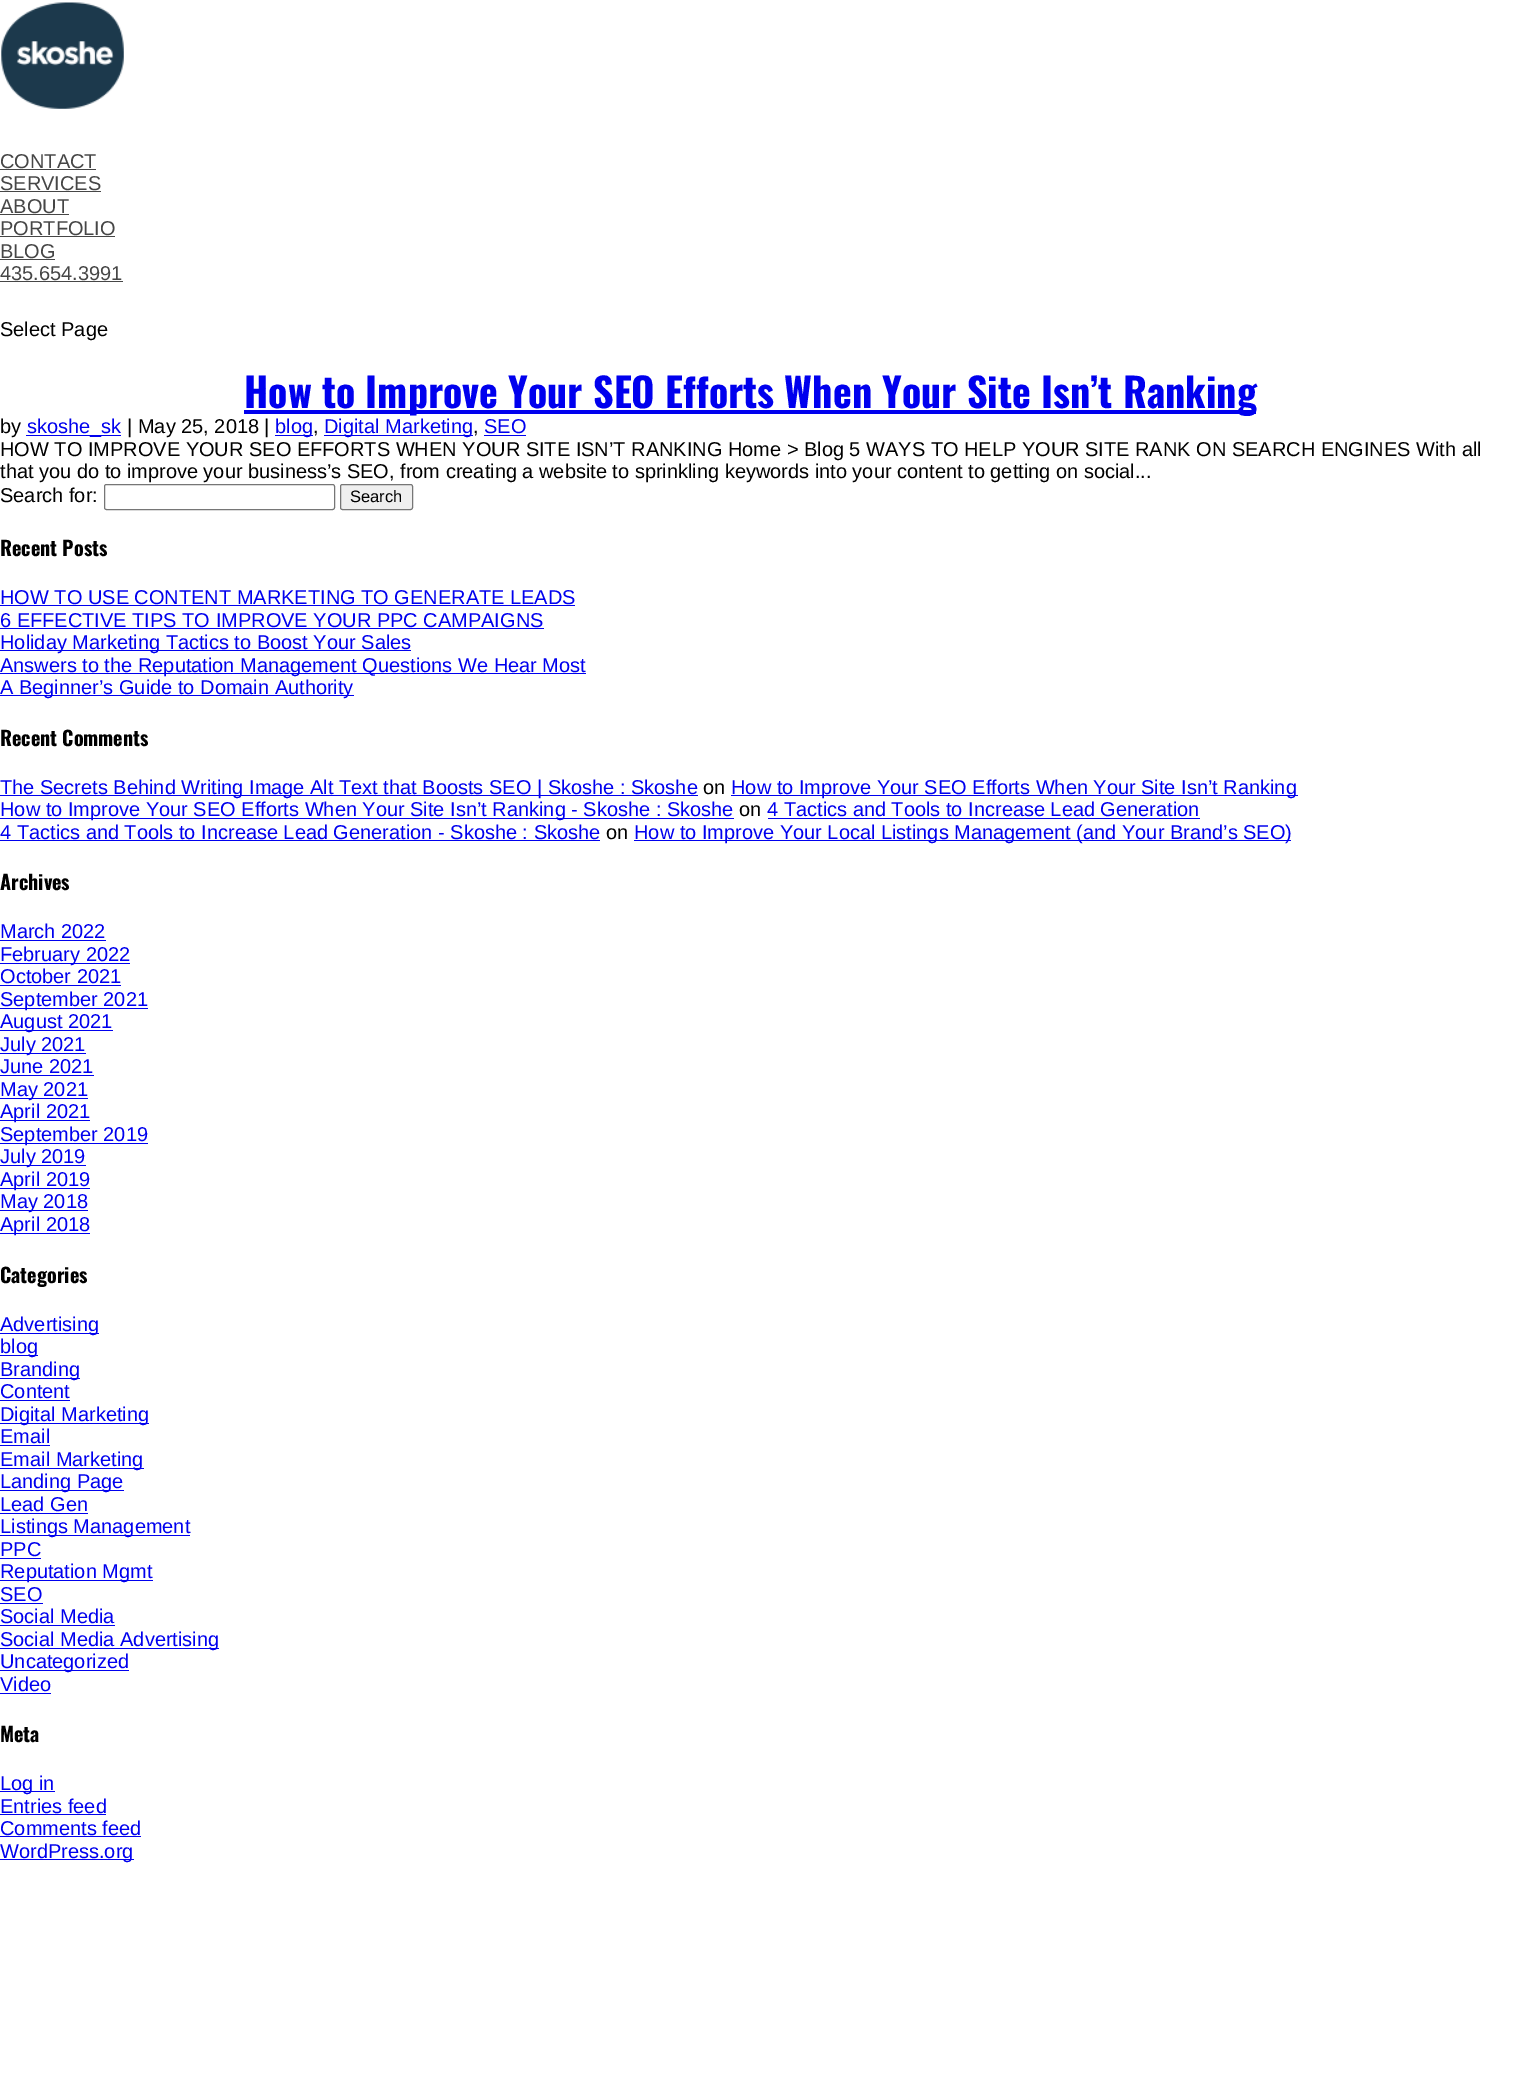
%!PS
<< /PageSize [1530 2088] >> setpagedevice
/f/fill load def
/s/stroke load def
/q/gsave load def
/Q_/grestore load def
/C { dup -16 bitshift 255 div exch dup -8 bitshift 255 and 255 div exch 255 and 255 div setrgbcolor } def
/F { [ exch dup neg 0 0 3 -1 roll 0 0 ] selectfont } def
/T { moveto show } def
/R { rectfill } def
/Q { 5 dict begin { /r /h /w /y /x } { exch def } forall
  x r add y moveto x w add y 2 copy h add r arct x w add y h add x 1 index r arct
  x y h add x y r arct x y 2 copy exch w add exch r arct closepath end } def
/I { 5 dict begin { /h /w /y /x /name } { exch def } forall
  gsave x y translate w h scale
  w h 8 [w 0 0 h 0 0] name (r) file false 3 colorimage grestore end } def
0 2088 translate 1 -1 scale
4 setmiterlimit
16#FFFFFF C
0 0 1530 2088 R
(1.rgb) 1 2 123 107 I
/LiberationSans-Regular 20 F
16#464646 C
(CONTACT) 0 168 T
0 169 96 1 R
(SERVICES) 0 190 T
0 191 101 1 R
(ABOUT) 0 213 T
0 214 69 1 R
(PORTFOLIO) 0 235 T
0 236 115 1 R
(BLOG) 0 258 T
0 259 55 1 R
(435.654.3991) 0 280 T
0 281 123 1 R
16#000000 C
(Select Page) 0 336 T
16#0000EE C
244 410 1012 4 R
/Oswald-Bold 40 F
(How to Improve Your SEO Efforts When Your Site Isn’t Ranking) 244 408 T
/LiberationSans-Regular 20 F
16#000000 C
(by) 0 433 T
16#0000EE C
26 435 95 1 R
(skoshe_sk) 27 433 T
16#000000 C
(| May 25, 2018 |) 127 433 T
16#0000EE C
275 435 38 1 R
(blog) 275 433 T
16#000000 C
(,) 313 433 T
16#0000EE C
324 435 149 1 R
(Digital Marketing) 324 433 T
16#000000 C
(,) 473 433 T
16#0000EE C
(SEO) 484 433 T
484 435 42 1 R
16#000000 C
(HOW TO IMPROVE YOUR SEO EFFORTS WHEN YOUR SITE ISN’T RANKING Home > Blog 5 WAYS TO HELP YOUR SITE RANK ON SEARCH ENGINES With all) 0 456 T
(that you do to improve your business’s SEO, from creating a website to sprinkling keywords into your content to getting on social...) 0 478 T
(Search for:) 0 502 T
16#767676 C
104.5 484.5 230 25 2 Q s
16#EFEFEF C
340.5 484.5 72 25 2 Q q f Q_
16#767676 C
s
/LiberationSans-Regular 16.5 F
16#000000 C
(Search) 350 502 T
/Oswald-Bold 20 F
(Recent Posts) 0 556 T
/LiberationSans-Regular 20 F
16#0000EE C
(HOW TO USE CONTENT MARKETING TO GENERATE LEADS) 0 604 T
0 605 575 1 R
(6 EFFECTIVE TIPS TO IMPROVE YOUR PPC CAMPAIGNS) 0 627 T
0 628 544 1 R
0 650 411 1 R
(Holiday Marketing Tactics to Boost Your Sales) 0 649 T
0 673 586 1 R
(Answers to the Reputation Management Questions We Hear Most) 0 672 T
0 695 354 1 R
(A Beginner’s Guide to Domain Authority) 0 694 T
/Oswald-Bold 20 F
16#000000 C
(Recent Comments) 0 746 T
16#0000EE C
0 795 698 1 R
/LiberationSans-Regular 20 F
(The Secrets Behind Writing Image Alt Text that Boosts SEO | Skoshe : Skoshe) 0 794 T
16#000000 C
(on) 703 794 T
16#0000EE C
731 795 567 1 R
(How to Improve Your SEO Efforts When Your Site Isn’t Ranking) 731 794 T
0 818 734 1 R
(How to Improve Your SEO Efforts When Your Site Isn’t Ranking - Skoshe : Skoshe) 0 816 T
16#000000 C
(on) 739 816 T
16#0000EE C
(4 Tactics and Tools to Increase Lead Generation) 767 816 T
768 818 432 1 R
(4 Tactics and Tools to Increase Lead Generation - Skoshe : Skoshe) 0 839 T
0 840 600 1 R
16#000000 C
(on) 606 839 T
16#0000EE C
634 840 657 1 R
(How to Improve Your Local Listings Management \(and Your Brand’s SEO\)) 634 839 T
/Oswald-Bold 20 F
16#000000 C
(Archives) 0 890 T
/LiberationSans-Regular 20 F
16#0000EE C
(March 2022) 0 938 T
0 940 106 1 R
0 963 130 1 R
(February 2022) 0 961 T
(October 2021) 0 983 T
0 985 121 1 R
0 1008 148 1 R
(September 2021) 0 1006 T
0 1030 113 1 R
(August 2021) 0 1028 T
0 1053 86 1 R
(July 2021) 0 1051 T
(June 2021) 0 1073 T
0 1075 94 1 R
0 1098 88 1 R
(May 2021) 0 1096 T
0 1120 90 1 R
(April 2021) 0 1118 T
0 1143 148 1 R
(September 2019) 0 1141 T
0 1165 86 1 R
(July 2019) 0 1163 T
0 1188 90 1 R
(April 2019) 0 1186 T
0 1210 88 1 R
(May 2018) 0 1208 T
0 1233 90 1 R
(April 2018) 0 1231 T
/Oswald-Bold 20 F
16#000000 C
(Categories) 0 1283 T
16#0000EE C
0 1333 99 1 R
/LiberationSans-Regular 20 F
(Advertising) 0 1331 T
0 1355 38 1 R
(blog) 0 1353 T
0 1378 80 1 R
(Branding) 0 1376 T
(Content) 0 1398 T
0 1400 70 1 R
0 1423 149 1 R
(Digital Marketing) 0 1421 T
(Email) 0 1443 T
0 1445 50 1 R
0 1468 144 1 R
(Email Marketing) 0 1466 T
0 1490 124 1 R
(Landing Page) 0 1488 T
(Lead Gen) 0 1511 T
0 1513 88 1 R
0 1535 190 1 R
(Listings Management) 0 1533 T
(PPC) 0 1556 T
0 1558 41 1 R
0 1580 153 1 R
(Reputation Mgmt) 0 1578 T
(SEO) 0 1601 T
0 1603 43 1 R
(Social Media) 0 1623 T
0 1625 115 1 R
0 1648 219 1 R
(Social Media Advertising) 0 1646 T
0 1670 129 1 R
(Uncategorized) 0 1668 T
(Video) 0 1691 T
0 1693 51 1 R
/Oswald-Bold 20 F
16#000000 C
(Meta) 0 1742 T
16#0000EE C
0 1791 55 1 R
/LiberationSans-Regular 20 F
(Log in) 0 1790 T
(Entries feed) 0 1813 T
0 1814 106 1 R
(Comments feed) 0 1835 T
0 1836 141 1 R
0 1859 134 1 R
(WordPress.org) 0 1858 T
showpage
